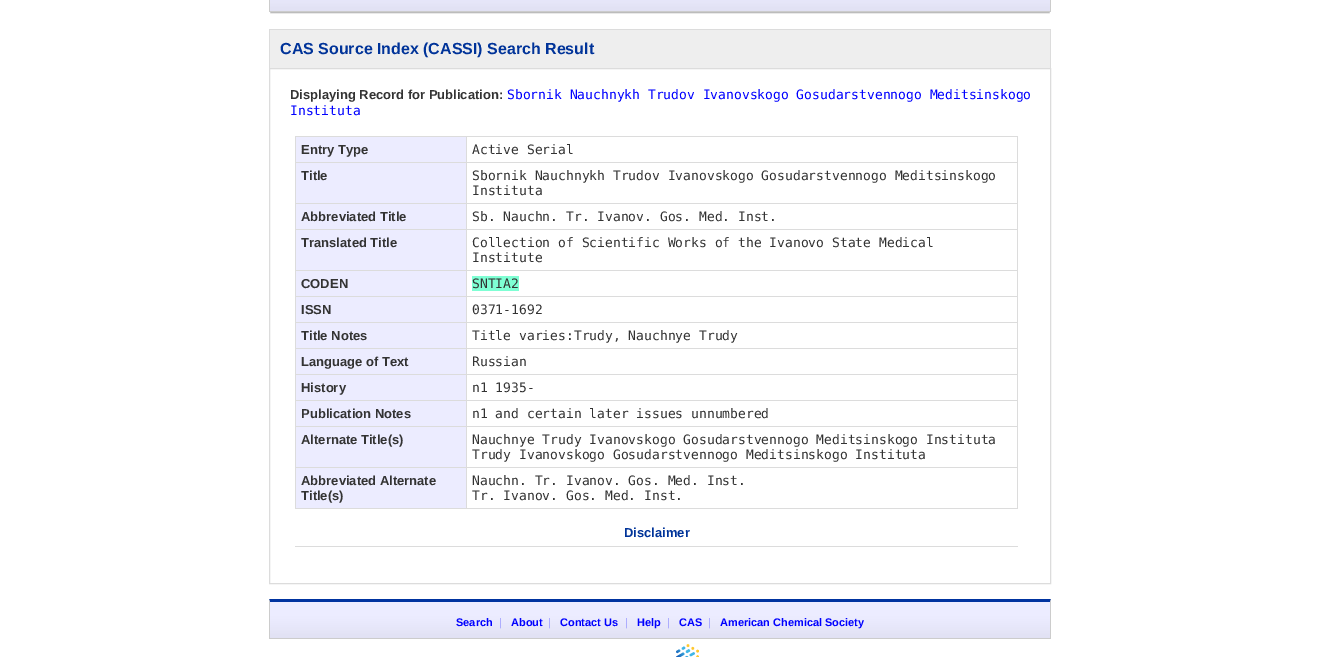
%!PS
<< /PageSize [1320 657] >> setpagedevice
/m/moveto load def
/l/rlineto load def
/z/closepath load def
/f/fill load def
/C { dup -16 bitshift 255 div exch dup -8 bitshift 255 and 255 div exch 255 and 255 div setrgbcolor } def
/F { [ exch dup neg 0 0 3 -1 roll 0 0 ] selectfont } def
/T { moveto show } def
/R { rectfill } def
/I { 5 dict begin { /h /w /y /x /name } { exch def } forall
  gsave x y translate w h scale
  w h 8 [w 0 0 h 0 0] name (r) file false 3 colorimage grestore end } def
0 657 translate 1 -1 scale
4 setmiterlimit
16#FFFFFF C
0 0 1320 657 R
(1.rgb) 270 0 780 11 I
16#CCCCCC C
1051 -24 m 0 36 l -1 -1 l 0 -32 l z f
269 11 782 1 R
269 12 m 0 -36 l 1 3 l 0 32 l z f
(2.rgb) 270 12 780 2 I
16#EEEEEE C
270 30 780 38 R
16#DCDCDC C
269 29 782 1 R
1050 29 1 39 R
269 29 1 39 R
/LiberationSans-Bold 16 F
16#003399 C
(CAS Source Index \(CASSI\) Search Result) 280 54 T
16#DCDCDC C
269.5 68.5 781 515 rectstroke
/LiberationSans-Bold 13 F
16#333333 C
(Displaying Record for Publication:) 290 99 T
/DejaVuSansMono-Regular 13 F
16#0000FF C
(Sbornik Nauchnykh Trudov Ivanovskogo Gosudarstvennogo Meditsinskogo) 507 99 T
(Instituta) 290 115 T
16#ECECFF C
296 137 170 25 R
16#DCDCDC C
295 136 723 1 R
295 136 1 26 R
/LiberationSans-Bold 13 F
16#333333 C
(Entry Type) 301 154 T
16#DCDCDC C
1017 136 1 26 R
466 136 1 26 R
/DejaVuSansMono-Regular 13 F
16#333333 C
(Active Serial) 472 154 T
16#ECECFF C
296 163 170 40 R
16#DCDCDC C
295 162 723 1 R
295 162 1 41 R
/LiberationSans-Bold 13 F
16#333333 C
(Title) 301 180 T
16#DCDCDC C
1017 162 1 41 R
466 162 1 41 R
/DejaVuSansMono-Regular 13 F
16#333333 C
(Sbornik Nauchnykh Trudov Ivanovskogo Gosudarstvennogo Meditsinskogo) 472 180 T
(Instituta) 472 195 T
16#ECECFF C
296 204 170 25 R
16#DCDCDC C
295 203 723 1 R
295 203 1 26 R
/LiberationSans-Bold 13 F
16#333333 C
(Abbreviated Title) 301 221 T
16#DCDCDC C
1017 203 1 26 R
466 203 1 26 R
/DejaVuSansMono-Regular 13 F
16#333333 C
(Sb. Nauchn. Tr. Ivanov. Gos. Med. Inst.) 472 221 T
16#ECECFF C
296 230 170 40 R
16#DCDCDC C
295 229 723 1 R
295 229 1 41 R
/LiberationSans-Bold 13 F
16#333333 C
(Translated Title) 301 247 T
16#DCDCDC C
1017 229 1 41 R
466 229 1 41 R
/DejaVuSansMono-Regular 13 F
16#333333 C
(Collection of Scientific Works of the Ivanovo State Medical) 472 247 T
(Institute) 472 262 T
16#ECECFF C
296 271 170 25 R
16#DCDCDC C
295 270 723 1 R
295 270 1 26 R
/LiberationSans-Bold 13 F
16#333333 C
(CODEN) 301 288 T
16#DCDCDC C
1017 270 1 26 R
466 270 1 26 R
16#7FFFD4 C
472 276 47 15 R
/DejaVuSansMono-Regular 13 F
16#333333 C
(SNTIA2) 472 288 T
16#ECECFF C
296 297 170 25 R
16#DCDCDC C
295 296 723 1 R
295 296 1 26 R
/LiberationSans-Bold 13 F
16#333333 C
(ISSN) 301 314 T
16#DCDCDC C
1017 296 1 26 R
466 296 1 26 R
/DejaVuSansMono-Regular 13 F
16#333333 C
(0371-1692) 472 314 T
16#ECECFF C
296 323 170 25 R
16#DCDCDC C
295 322 723 1 R
295 322 1 26 R
/LiberationSans-Bold 13 F
16#333333 C
(Title Notes) 301 340 T
16#DCDCDC C
1017 322 1 26 R
466 322 1 26 R
/DejaVuSansMono-Regular 13 F
16#333333 C
(Title varies:Trudy, Nauchnye Trudy) 472 340 T
16#ECECFF C
296 349 170 25 R
16#DCDCDC C
295 348 723 1 R
295 348 1 26 R
/LiberationSans-Bold 13 F
16#333333 C
(Language of Text) 301 366 T
16#DCDCDC C
1017 348 1 26 R
466 348 1 26 R
/DejaVuSansMono-Regular 13 F
16#333333 C
(Russian) 472 366 T
16#ECECFF C
296 375 170 25 R
16#DCDCDC C
295 374 723 1 R
295 374 1 26 R
/LiberationSans-Bold 13 F
16#333333 C
(History) 301 392 T
16#DCDCDC C
1017 374 1 26 R
466 374 1 26 R
/DejaVuSansMono-Regular 13 F
16#333333 C
(n1 1935-) 472 392 T
16#ECECFF C
296 401 170 25 R
16#DCDCDC C
295 400 723 1 R
295 400 1 26 R
/LiberationSans-Bold 13 F
16#333333 C
(Publication Notes) 301 418 T
16#DCDCDC C
1017 400 1 26 R
466 400 1 26 R
/DejaVuSansMono-Regular 13 F
16#333333 C
(n1 and certain later issues unnumbered) 472 418 T
16#ECECFF C
296 427 170 40 R
16#DCDCDC C
295 426 723 1 R
295 426 1 41 R
/LiberationSans-Bold 13 F
16#333333 C
(Alternate Title\(s\)) 301 444 T
16#DCDCDC C
1017 426 1 41 R
466 426 1 41 R
/DejaVuSansMono-Regular 13 F
16#333333 C
(Nauchnye Trudy Ivanovskogo Gosudarstvennogo Meditsinskogo Instituta) 472 444 T
(Trudy Ivanovskogo Gosudarstvennogo Meditsinskogo Instituta) 472 459 T
16#ECECFF C
296 468 170 40 R
16#DCDCDC C
295 467 723 1 R
295 467 1 41 R
/LiberationSans-Bold 13 F
16#333333 C
(Abbreviated Alternate) 301 485 T
(Title\(s\)) 301 500 T
16#DCDCDC C
1017 467 1 41 R
466 467 1 41 R
/DejaVuSansMono-Regular 13 F
16#333333 C
(Nauchn. Tr. Ivanov. Gos. Med. Inst.) 472 485 T
(Tr. Ivanov. Gos. Med. Inst.) 472 500 T
16#DCDCDC C
295 508 723 1 R
/LiberationSans-Bold 13 F
16#003399 C
(Disclaimer) 624 537 T
16#DCDCDC C
295 546 723 1 R
(3.rgb) 269 599 782 39 I
16#0033A0 C
269 599 m 782 0 l -1 3 l -780 0 l z f
16#CCCCCC C
1051 599 m 0 40 l -1 -1 l 0 -36 l z f
269 638 782 1 R
269 639 m 0 -40 l 1 3 l 0 36 l z f
/LiberationSans-Bold 11 F
16#0000FF C
(Search) 456 626 T
/LiberationSans-Regular 11 F
16#9999FF C
(|) 499 626 T
/LiberationSans-Bold 11 F
16#0000FF C
(About) 511 626 T
/LiberationSans-Regular 11 F
16#9999FF C
(|) 548 626 T
/LiberationSans-Bold 11 F
16#0000FF C
(Contact Us) 560 626 T
/LiberationSans-Regular 11 F
16#9999FF C
(|) 625 626 T
/LiberationSans-Bold 11 F
16#0000FF C
(Help) 637 626 T
/LiberationSans-Regular 11 F
16#9999FF C
(|) 667 626 T
/LiberationSans-Bold 11 F
16#0000FF C
(CAS) 679 626 T
/LiberationSans-Regular 11 F
16#9999FF C
(|) 708 626 T
/LiberationSans-Bold 11 F
16#0000FF C
(American Chemical Society) 720 626 T
(4.rgb) 676 644 23 13 I
showpage
